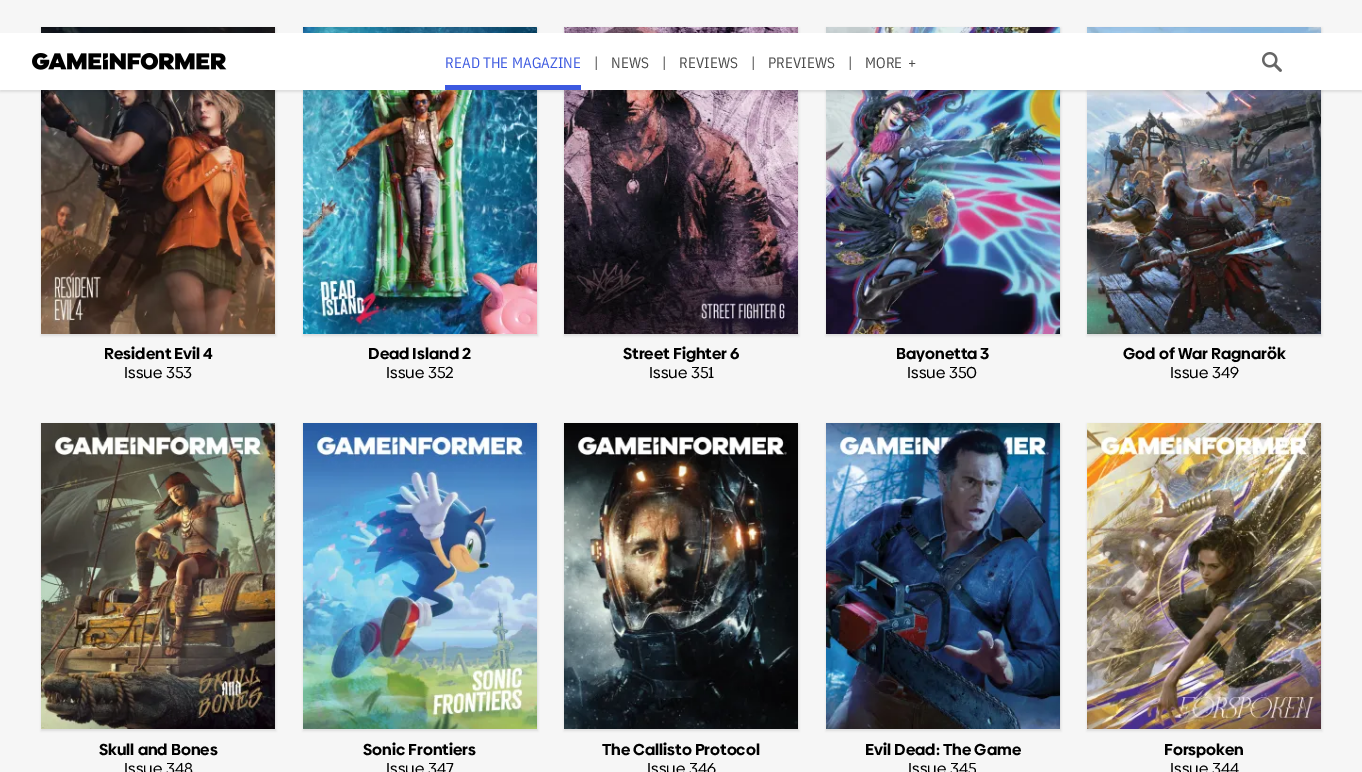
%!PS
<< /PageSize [1362 772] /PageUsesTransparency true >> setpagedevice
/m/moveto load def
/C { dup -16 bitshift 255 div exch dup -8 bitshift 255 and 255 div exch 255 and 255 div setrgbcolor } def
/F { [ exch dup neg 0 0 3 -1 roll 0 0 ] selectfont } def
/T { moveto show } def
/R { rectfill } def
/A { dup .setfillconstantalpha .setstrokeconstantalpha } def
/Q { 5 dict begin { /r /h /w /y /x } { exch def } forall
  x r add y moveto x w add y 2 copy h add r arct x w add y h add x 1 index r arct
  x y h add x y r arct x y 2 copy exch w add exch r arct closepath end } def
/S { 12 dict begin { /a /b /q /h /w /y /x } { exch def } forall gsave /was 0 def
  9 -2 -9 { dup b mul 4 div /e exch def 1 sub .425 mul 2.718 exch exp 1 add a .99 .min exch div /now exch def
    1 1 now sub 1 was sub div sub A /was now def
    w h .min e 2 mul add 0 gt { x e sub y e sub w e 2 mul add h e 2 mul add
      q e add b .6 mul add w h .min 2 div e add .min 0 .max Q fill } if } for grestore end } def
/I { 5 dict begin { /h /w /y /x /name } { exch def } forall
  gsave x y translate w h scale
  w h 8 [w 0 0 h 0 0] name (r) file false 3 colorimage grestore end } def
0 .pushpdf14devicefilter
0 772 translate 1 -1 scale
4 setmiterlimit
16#F6F6F6 C
0 0 1362 772 R
16#000000 C
41 28 235 308 0 1 .1 S
(3.rgb) 41 27 234 307 I
303 28 235 308 0 1 .1 S
(4.rgb) 303 27 234 307 I
564 28 235 308 0 1 .1 S
(5.rgb) 564 27 234 307 I
826 28 235 308 0 1 .1 S
(6.rgb) 826 27 234 307 I
1087 28 235 308 0 1 .1 S
(7.rgb) 1087 27 234 307 I
0 35 1362 57 0 1 .1 S
16#FFFFFF C
0 33 1362 57 R
(1.rgb) 32 53 195 17 I
/IBMPlexSansCondensed-Regular 15 F
16#3C59E0 C
445 68 m .1 0 (READ THE MAGAZINE) ashow
445 85 136 5 R
16#4B4B4B C
594 68 m .1 0 (|) ashow
611 68 m .1 0 (NEWS) ashow
662 68 m .1 0 (|) ashow
679 68 m .1 0 (REVIEWS) ashow
751 68 m .1 0 (|) ashow
768 68 m .1 0 (PREVIEWS) ashow
848 68 m .1 0 (|) ashow
865 68 m .1 0 (MORE) ashow
908 68 m .1 0 (+) ashow
(2.rgb) 1262 52 20 20 I
/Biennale-Bold 15.9 F
16#000000 C
(Resident Evil 4) 104 359 T
/Biennale-Regular 15.9 F
(Issue 353) 124 378 T
/Biennale-Bold 15.9 F
(Dead Island 2) 368 359 T
/Biennale-Regular 15.9 F
(Issue 352) 386 378 T
/Biennale-Bold 15.9 F
(Street Fighter 6) 623 359 T
/Biennale-Regular 15.9 F
(Issue 351) 649 378 T
/Biennale-Bold 15.9 F
(Bayonetta 3) 896 359 T
/Biennale-Regular 15.9 F
(Issue 350) 907 378 T
/Biennale-Bold 15.9 F
(God of War Ragnarök) 1123 359 T
/Biennale-Regular 15.9 F
(Issue 349) 1170 378 T
41 424 235 307 0 1 .1 S
(8.rgb) 41 423 234 306 I
/Biennale-Bold 15.9 F
(Skull and Bones) 99 755 T
/Biennale-Regular 15.9 F
(Issue 348) 124 774 T
303 424 235 307 0 1 .1 S
(9.rgb) 303 423 234 306 I
/Biennale-Bold 15.9 F
(Sonic Frontiers) 363 755 T
/Biennale-Regular 15.9 F
(Issue 347) 386 774 T
564 424 235 307 0 1 .1 S
(10.rgb) 564 423 234 306 I
/Biennale-Bold 15.9 F
(The Callisto Protocol) 602 755 T
/Biennale-Regular 15.9 F
(Issue 346) 647 774 T
826 424 235 307 0 1 .1 S
(11.rgb) 826 423 234 306 I
/Biennale-Bold 15.9 F
(Evil Dead: The Game) 865 755 T
/Biennale-Regular 15.9 F
(Issue 345) 908 774 T
1087 424 235 307 0 1 .1 S
(12.rgb) 1087 423 234 306 I
/Biennale-Bold 15.9 F
(Forspoken) 1164 755 T
/Biennale-Regular 15.9 F
(Issue 344) 1170 774 T
.poppdf14devicefilter showpage
